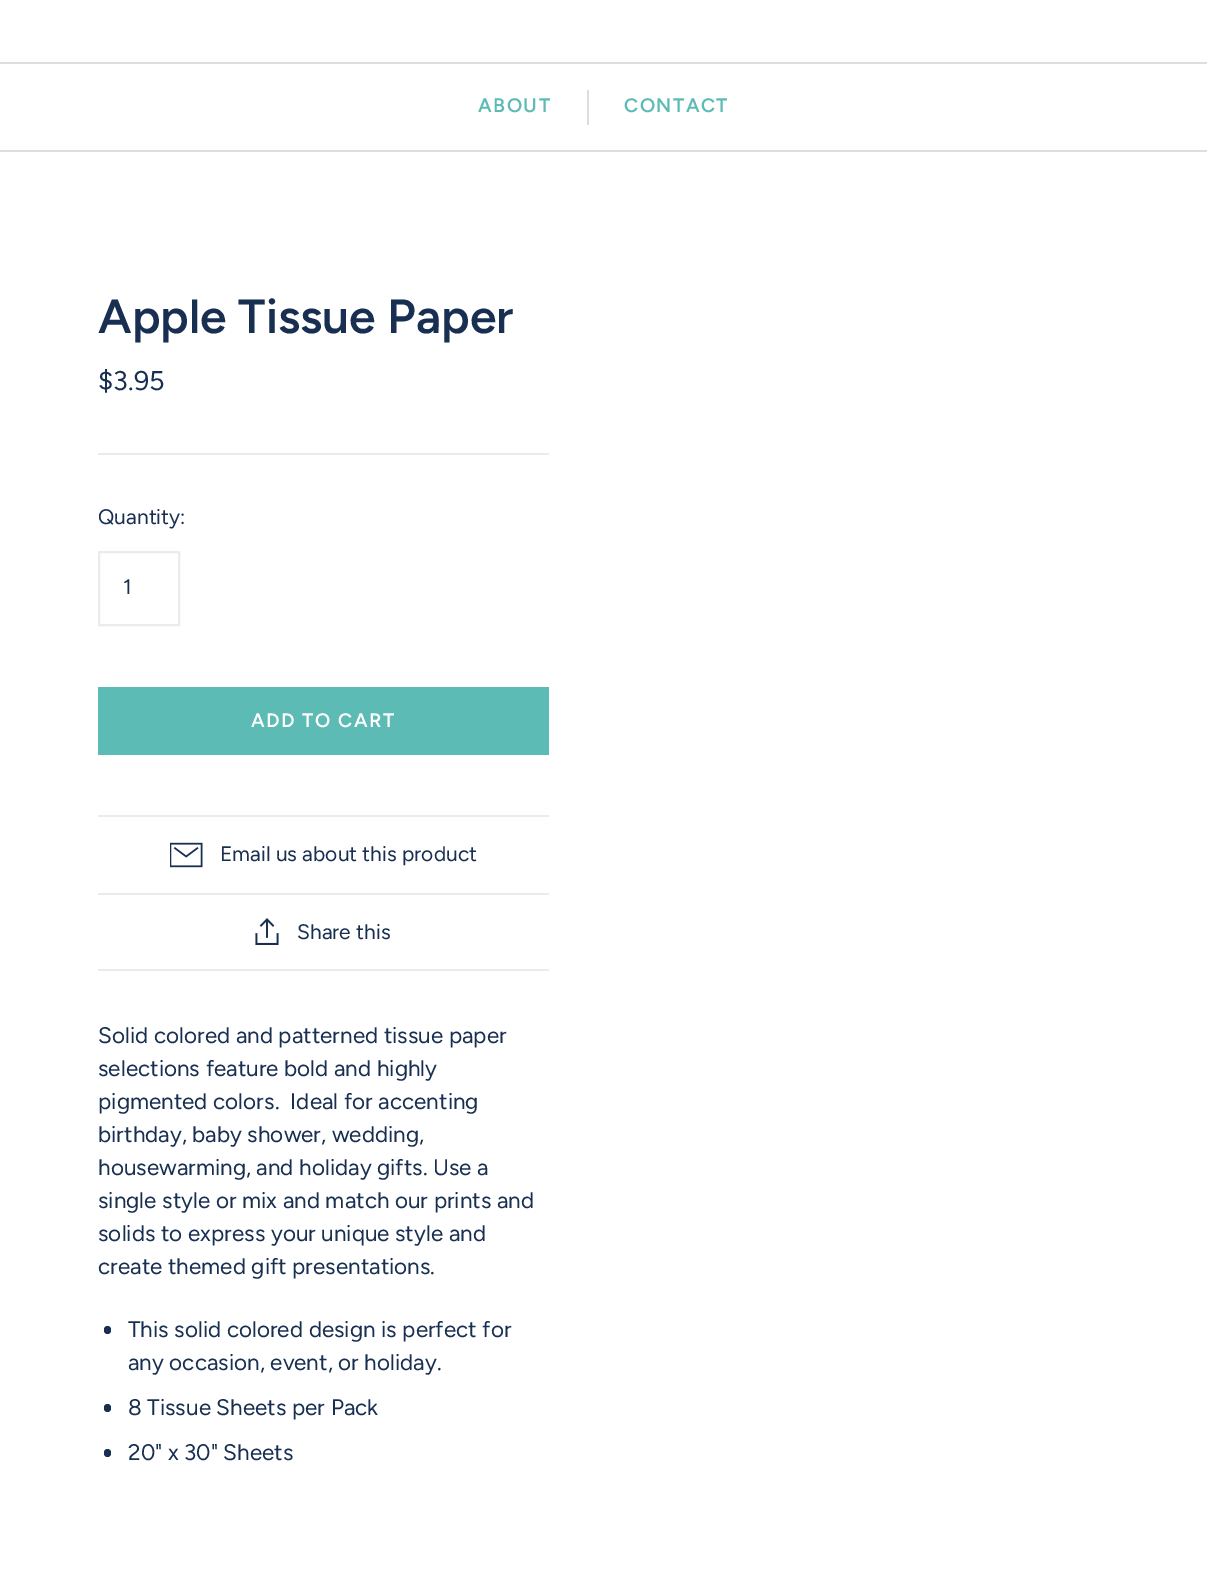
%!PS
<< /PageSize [1207 1581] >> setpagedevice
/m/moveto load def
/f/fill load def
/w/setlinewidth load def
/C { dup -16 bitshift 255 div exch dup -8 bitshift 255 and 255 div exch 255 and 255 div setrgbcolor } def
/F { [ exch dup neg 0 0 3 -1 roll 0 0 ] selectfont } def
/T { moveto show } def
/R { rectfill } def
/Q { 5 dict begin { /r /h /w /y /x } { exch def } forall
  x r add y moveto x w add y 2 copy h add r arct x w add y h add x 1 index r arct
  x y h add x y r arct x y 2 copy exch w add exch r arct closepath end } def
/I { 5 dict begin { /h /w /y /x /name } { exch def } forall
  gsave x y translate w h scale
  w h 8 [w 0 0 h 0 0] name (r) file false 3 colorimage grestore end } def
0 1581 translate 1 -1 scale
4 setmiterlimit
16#FFFFFF C
0 0 1207 1581 R
16#DDDDDD C
0 62 1207 2 R
0 150 1207 2 R
/Figtree-SemiBold 19.5 F
16#5CBBB5 C
478 112 m 1.5 0 (ABOUT) ashow
16#DDDDDD C
587 90 2 35 R
16#5CBBB5 C
624 112 m 1.5 0 (CONTACT) ashow
/Figtree-SemiBold 48 F
16#192F52 C
(Apple Tissue Paper) 98 333 T
/Figtree-Regular 27 F
($3.95) 98 390 T
16#EBEBEB C
98 453 451 2 R
/Figtree-Regular 21 F
16#192F52 C
(Quantity:) 98 524 T
16#EBEBEB C
2 w
99 552 80 73 rectstroke
16#192F52 C
(1) 123 594 T
16#5CBBB5 C
98 687 451 68 R
/Figtree-SemiBold 19.5 F
16#FFFFFF C
251 727 m 1.5 0 (ADD TO CART) ashow
16#EBEBEB C
98 815 451 2 R
98 969 451 2 R
(1.rgb) 170 842 33 26 I
/Figtree-Regular 21 F
16#192F52 C
(Email us about this product) 220 861 T
16#EBEBEB C
98 893 451 2 R
(2.rgb) 255 918 24 27 I
16#192F52 C
(Share this) 297 939 T
/Figtree-Regular 22.5 F
(Solid colored and patterned tissue paper) 98 1043 T
(selections feature bold and highly) 98 1076 T
(pigmented colors.  Ideal for accenting) 98 1109 T
(birthday, baby shower, wedding,) 98 1142 T
(housewarming, and holiday gifts. Use a) 98 1175 T
(single style or mix and match our prints and) 98 1208 T
(solids to express your unique style and) 98 1241 T
(create themed gift presentations.) 98 1274 T
104 1326 7 8 3.5 Q f
(This solid colored design is perfect for) 128 1337 T
(any occasion, event, or holiday.) 128 1370 T
104 1404 7 8 3.5 Q f
(8 Tissue Sheets per Pack) 128 1415 T
104 1449 7 8 3.5 Q f
(20" x 30" Sheets) 128 1460 T
showpage
